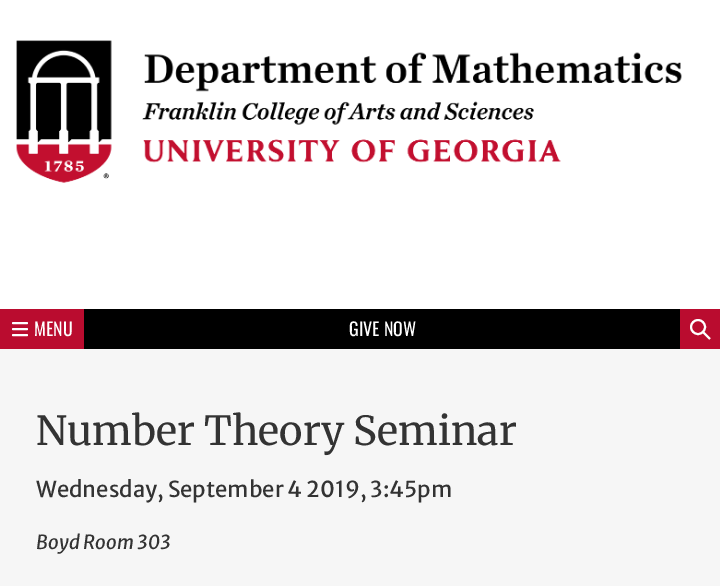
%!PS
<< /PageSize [720 586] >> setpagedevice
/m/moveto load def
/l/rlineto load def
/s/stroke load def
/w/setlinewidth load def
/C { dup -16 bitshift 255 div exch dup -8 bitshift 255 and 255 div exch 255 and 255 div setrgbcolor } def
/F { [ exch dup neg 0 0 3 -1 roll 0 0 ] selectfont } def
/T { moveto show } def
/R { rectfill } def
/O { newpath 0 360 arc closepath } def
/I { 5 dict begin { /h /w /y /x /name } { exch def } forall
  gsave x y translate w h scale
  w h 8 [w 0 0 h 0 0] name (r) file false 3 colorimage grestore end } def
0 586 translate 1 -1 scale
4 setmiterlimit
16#FFFFFF C
0 0 720 586 R
(1.rgb) 16 40 666 143 I
16#000000 C
84 309 596 40 R
16#BA0C2F C
0 309 84 40 R
16#FFFFFF C
2 w
1 setlinecap
13 323 m 14 0 l 13 329 m 14 0 l 13 335 m 14 0 l s
/Oswald-Regular 18 F
(MENU) 34 336 T
(GIVE NOW) 349 336 T
16#BA0C2F C
680 309 40 40 R
16#FFFFFF C
0 setlinecap
698 327 7 O s
703 332 m 7 7 l s
16#F6F6F6 C
0 349 720 237 R
/Merriweather-Light 40 F
16#333333 C
(Number Theory Seminar) 36 445 T
/MerriweatherSans-Regular 22 F
(Wednesday, September 4 2019, 3:45pm) 36 497 T
/MerriweatherSans-Italic 19.25 F
(Boyd Room 303) 36 549 T
showpage
